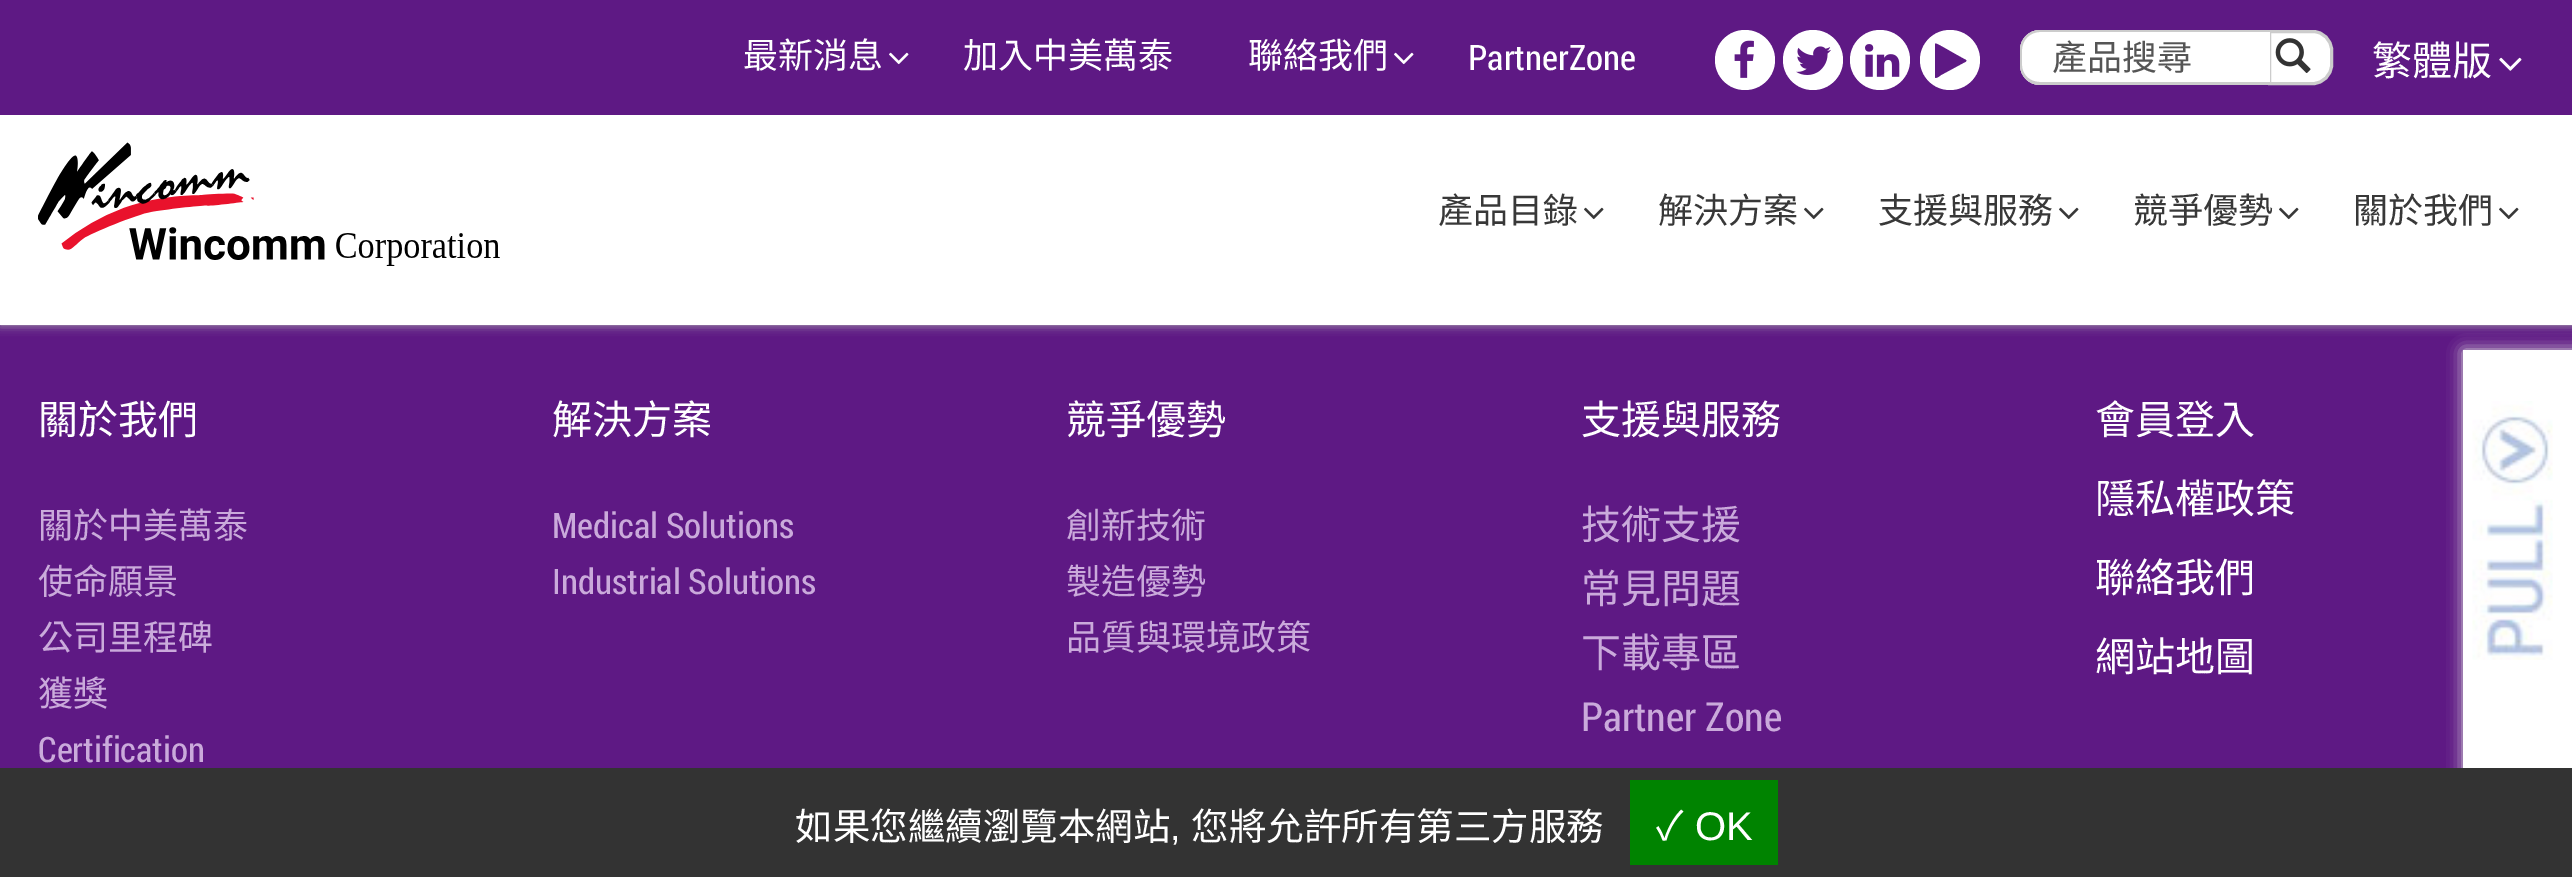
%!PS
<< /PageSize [2572 877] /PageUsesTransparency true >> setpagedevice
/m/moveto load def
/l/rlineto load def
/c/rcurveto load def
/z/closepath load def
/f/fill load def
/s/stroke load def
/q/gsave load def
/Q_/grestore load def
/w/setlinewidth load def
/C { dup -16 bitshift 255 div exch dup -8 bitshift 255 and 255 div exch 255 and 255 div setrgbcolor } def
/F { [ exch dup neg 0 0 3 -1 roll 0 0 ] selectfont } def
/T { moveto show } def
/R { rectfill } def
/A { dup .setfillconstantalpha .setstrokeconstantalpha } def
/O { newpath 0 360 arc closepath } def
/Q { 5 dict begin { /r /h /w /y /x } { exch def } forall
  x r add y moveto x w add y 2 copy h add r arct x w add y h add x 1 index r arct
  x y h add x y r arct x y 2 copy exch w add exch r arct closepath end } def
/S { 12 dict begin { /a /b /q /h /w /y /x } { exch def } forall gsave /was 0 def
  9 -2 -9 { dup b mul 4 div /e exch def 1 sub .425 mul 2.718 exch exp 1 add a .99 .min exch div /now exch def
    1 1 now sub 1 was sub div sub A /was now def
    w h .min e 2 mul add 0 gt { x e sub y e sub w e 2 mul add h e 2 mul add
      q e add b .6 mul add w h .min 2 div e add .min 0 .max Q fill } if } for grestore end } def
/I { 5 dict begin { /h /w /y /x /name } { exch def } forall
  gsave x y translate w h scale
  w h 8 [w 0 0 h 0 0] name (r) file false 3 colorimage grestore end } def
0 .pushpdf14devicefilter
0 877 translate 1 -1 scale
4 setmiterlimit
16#5E1984 C
0 0 2572 877 R
16#B8B8B8 C
0 0 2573 325 0 5 1 S
16#FFFFFF C
0 115 2572 210 R
16#5E1984 C
0 0 2572 115 R
/NotoSansCJKTC-Regular 35 F
16#FFFFFF C
(最新消息) 743 68 T
(1.rgb) 889 52 20 13 I
(加入中美萬泰) 963 68 T
(聯絡我們) 1248 68 T
(1.rgb) 1394 52 20 13 I
/RobotoCondensed-Regular 35 F
(PartnerZone) 1468 70 T
1745 60 30 O f
(2.rgb) 1734 40 20 38 I
1813 60 30 O f
(3.rgb) 1796 46 35 29 I
1880 60 30 O f
(4.rgb) 1865 44 35 33 I
1950 60 30 O f
16#5E1984 C
1966 61.5 m -25 13.5 l -.5 .5 -5 4 -6 2.5 c 0 -33.5 l .5 -.5 l 1 -.5 18.5 10 20.5 11 c 10 5.5 l .5 .5 l z f
16#FFFFFF C
2269.5 31.5 m 43.5 0 l 10 0 18.5 8.5 18.5 18.5 c 0 15 l 0 10 -8.5 18.5 -18.5 18.5 c -43.5 0 l z q f Q_
16#CCCCCC C
3 w
s
16#FFFFFF C
2040 30 m 230 0 l 0 55 l -230 0 l -11 0 -20 -9 -20 -20 c 0 -15 l 0 -11 9 -20 20 -20 c z f
16#CCCCCC C
2040 30 m 230 0 l 0 55 l -230 0 l -11 0 -20 -9 -20 -20 c 0 -15 l 0 -11 9 -20 20 -20 c z 2040 32 m 230 0 l 0 50 l -230 0 l -10 0 -18 -7 -18 -17 c 0 -15 l 0 -10 8 -18 18 -18 c z eofill
/NotoSansCJKTC-Regular 35 F
16#555555 C
(產品搜尋) 2052 70 T
(5.rgb) 2275 38 36 35 I
/NotoSansCJKTC-Regular 40 F
16#FFFFFF C
(繁體版) 2372 75 T
(6.rgb) 2499 57 23 14 I
(7.rgb) 38 142 462 124 I
/NotoSansCJKTC-Regular 35 F
16#383838 C
(產品目錄) 1438 223 T
(8.rgb) 1584 207 20 13 I
(解決方案) 1658 223 T
(8.rgb) 1804 207 20 13 I
(支援與服務) 1878 223 T
(8.rgb) 2059 207 20 13 I
(競爭優勢) 2133 223 T
(8.rgb) 2279 207 20 13 I
(關於我們) 2353 223 T
(8.rgb) 2499 207 20 13 I
/NotoSansCJKTC-Regular 40 F
16#FFFFFF C
(關於我們) 38 434 T
/NotoSansCJKTC-Regular 35 F
16#CAAADB C
(關於中美萬泰) 38 538 T
(使命願景) 38 594 T
(公司里程碑) 38 650 T
(獲獎) 38 706 T
/RobotoCondensed-Regular 35 F
(Certification) 38 762 T
/NotoSansCJKTC-Regular 40 F
16#FFFFFF C
(解決方案) 552 434 T
/RobotoCondensed-Regular 35 F
16#CAAADB C
(Medical Solutions) 552 538 T
(Industrial Solutions) 552 594 T
/NotoSansCJKTC-Regular 40 F
16#FFFFFF C
(競爭優勢) 1066 434 T
/NotoSansCJKTC-Regular 35 F
16#CAAADB C
(創新技術) 1066 538 T
(製造優勢) 1066 594 T
(品質與環境政策) 1066 650 T
/NotoSansCJKTC-Regular 40 F
16#FFFFFF C
(支援與服務) 1581 434 T
16#CAAADB C
(技術支援) 1581 539 T
(常見問題) 1581 603 T
(下載專區) 1581 667 T
/RobotoCondensed-Regular 40 F
(Partner Zone) 1581 731 T
/NotoSansCJKTC-Regular 40 F
16#FFFFFF C
(會員登入) 2095 434 T
(隱私權政策) 2095 513 T
(聯絡我們) 2095 592 T
(網站地圖) 2095 671 T
16#DEDEDE C
2463 350 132 463 0 7.5 1 S
16#FFFFFF C
2463 350 109 418 R
(9.rgb) 2472 401 81 259 I
16#333333 C
0 768 2572 109 R
/NotoSansCJKTC-Regular 37.5 F
16#FFFFFF C
(如果您繼續瀏覽本網站) 795 840 T
/LiberationSans-Regular 37.5 F
(,) 1170 840 T
/NotoSansCJKTC-Regular 37.5 F
(您將允許所有第三方服務) 1191 840 T
16#008300 C
1630 780 148 85 R
/NotoSansCJKTC-Regular 40 F
16#FFFFFF C
(✓) 1656 840 T
/LiberationSans-Regular 40 F
(OK) 1695 840 T
.poppdf14devicefilter showpage
